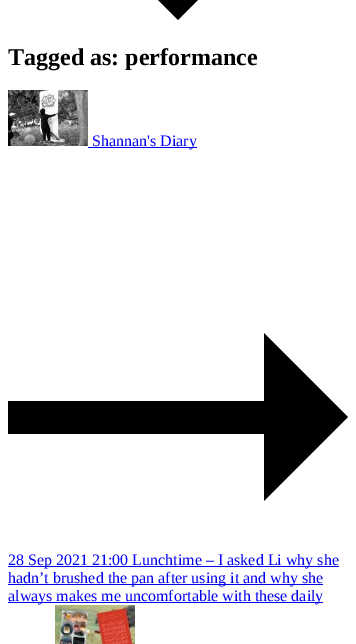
%!PS
<< /PageSize [356 644] >> setpagedevice
/m/moveto load def
/l/rlineto load def
/z/closepath load def
/f/fill load def
/C { dup -16 bitshift 255 div exch dup -8 bitshift 255 and 255 div exch 255 and 255 div setrgbcolor } def
/F { [ exch dup neg 0 0 3 -1 roll 0 0 ] selectfont } def
/T { moveto show } def
/R { rectfill } def
/I { 5 dict begin { /h /w /y /x /name } { exch def } forall
  gsave x y translate w h scale
  w h 8 [w 0 0 h 0 0] name (r) file false 3 colorimage grestore end } def
0 644 translate 1 -1 scale
4 setmiterlimit
16#FFFFFF C
0 0 356 644 R
16#000000 C
220 -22 m -171 -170 l -41 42 l 170 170 l z f
/LiberationSerif-Bold 24 F
(Tagged as: performance) 8 65 T
(1.rgb) 8 90 80 56 I
16#0000EE C
88 147 109 1 R
/LiberationSerif-Regular 16 F
(Shannan's Diary) 92 146 T
8 566 331 1 R
(28 Sep 2021 21:00 Lunchtime – I asked Li why she) 8 565 T
16#000000 C
325 417 m -61 -61 l 0 45 l -256 0 l 0 33 l 256 0 l 0 44 l z f
264 501 m 84 -84 l -84 -84 l z f
16#0000EE C
8 584 315 1 R
(hadn’t brushed the pan after using it and why she) 8 583 T
8 602 315 1 R
(always makes me uncomfortable with these daily) 8 601 T
(2.rgb) 55 605 80 39 I
showpage
